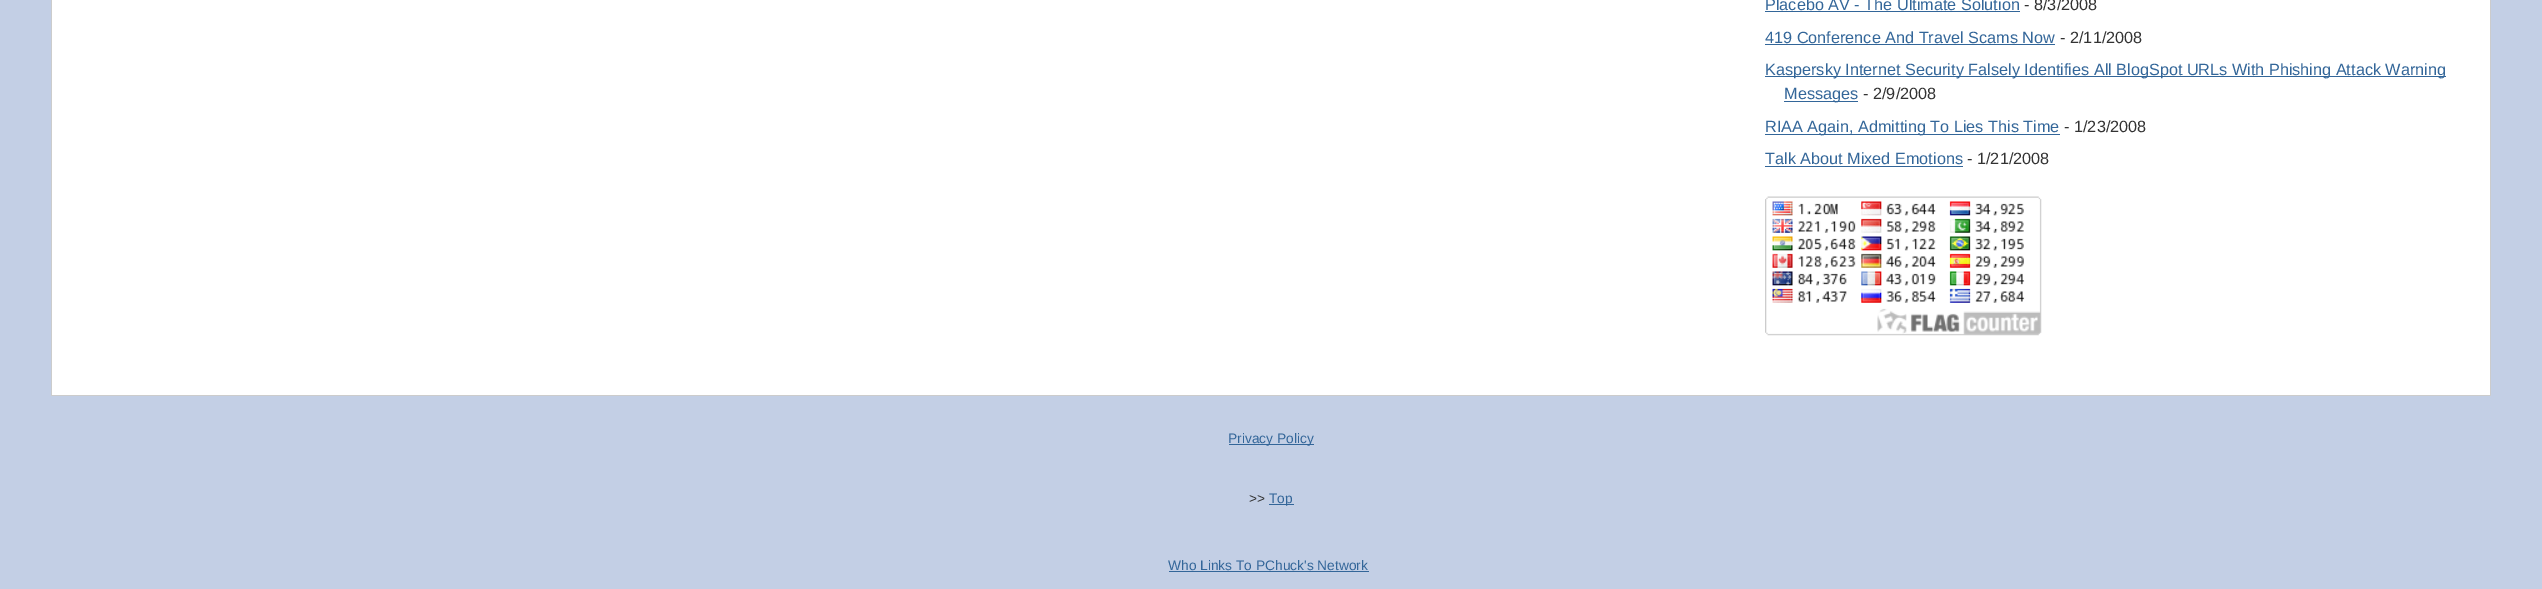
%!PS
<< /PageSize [2542 589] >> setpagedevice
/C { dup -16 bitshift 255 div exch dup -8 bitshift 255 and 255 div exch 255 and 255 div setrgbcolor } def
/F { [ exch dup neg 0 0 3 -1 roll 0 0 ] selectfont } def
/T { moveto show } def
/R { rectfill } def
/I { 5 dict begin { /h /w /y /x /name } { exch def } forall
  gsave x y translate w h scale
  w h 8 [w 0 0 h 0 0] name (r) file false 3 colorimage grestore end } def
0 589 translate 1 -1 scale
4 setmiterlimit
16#C3CFE5 C
0 0 2542 589 R
16#FFFFFF C
52 0 2438 395 R
16#CCCCCC C
2490 0 1 396 R
51 395 2440 1 R
51 0 1 396 R
/LiberationSans-Regular 16.25 F
16#336699 C
(Placebo AV - The Ultimate Solution) 1765 10 T
1765 11 255 1 R
16#333333 C
(- 8/3/2008) 2024 10 T
16#336699 C
(419 Conference And Travel Scams Now) 1765 43 T
1765 44 290 1 R
16#333333 C
(- 2/11/2008) 2060 43 T
16#336699 C
1765 76 681 1 R
(Kaspersky Internet Security Falsely Identifies All BlogSpot URLs With Phishing Attack Warning) 1765 75 T
1784 101 74 1 R
(Messages) 1784 99 T
16#333333 C
(- 2/9/2008) 1863 99 T
16#336699 C
1765 134 295 1 R
(RIAA Again, Admitting To Lies This Time) 1765 132 T
16#333333 C
(- 1/23/2008) 2064 132 T
16#336699 C
(Talk About Mixed Emotions) 1765 164 T
1765 166 198 1 R
16#333333 C
(- 1/21/2008) 1967 164 T
(1.rgb) 1765 196 277 140 I
16#336699 C
1229 444 85 1 R
/LiberationSans-Regular 13.75 F
(Privacy Policy) 1228 443 T
16#333333 C
(>>) 1249 503 T
16#336699 C
1269 504 25 1 R
(Top) 1269 503 T
(Who Links To PChuck's Network) 1168 570 T
1169 571 200 1 R
showpage
